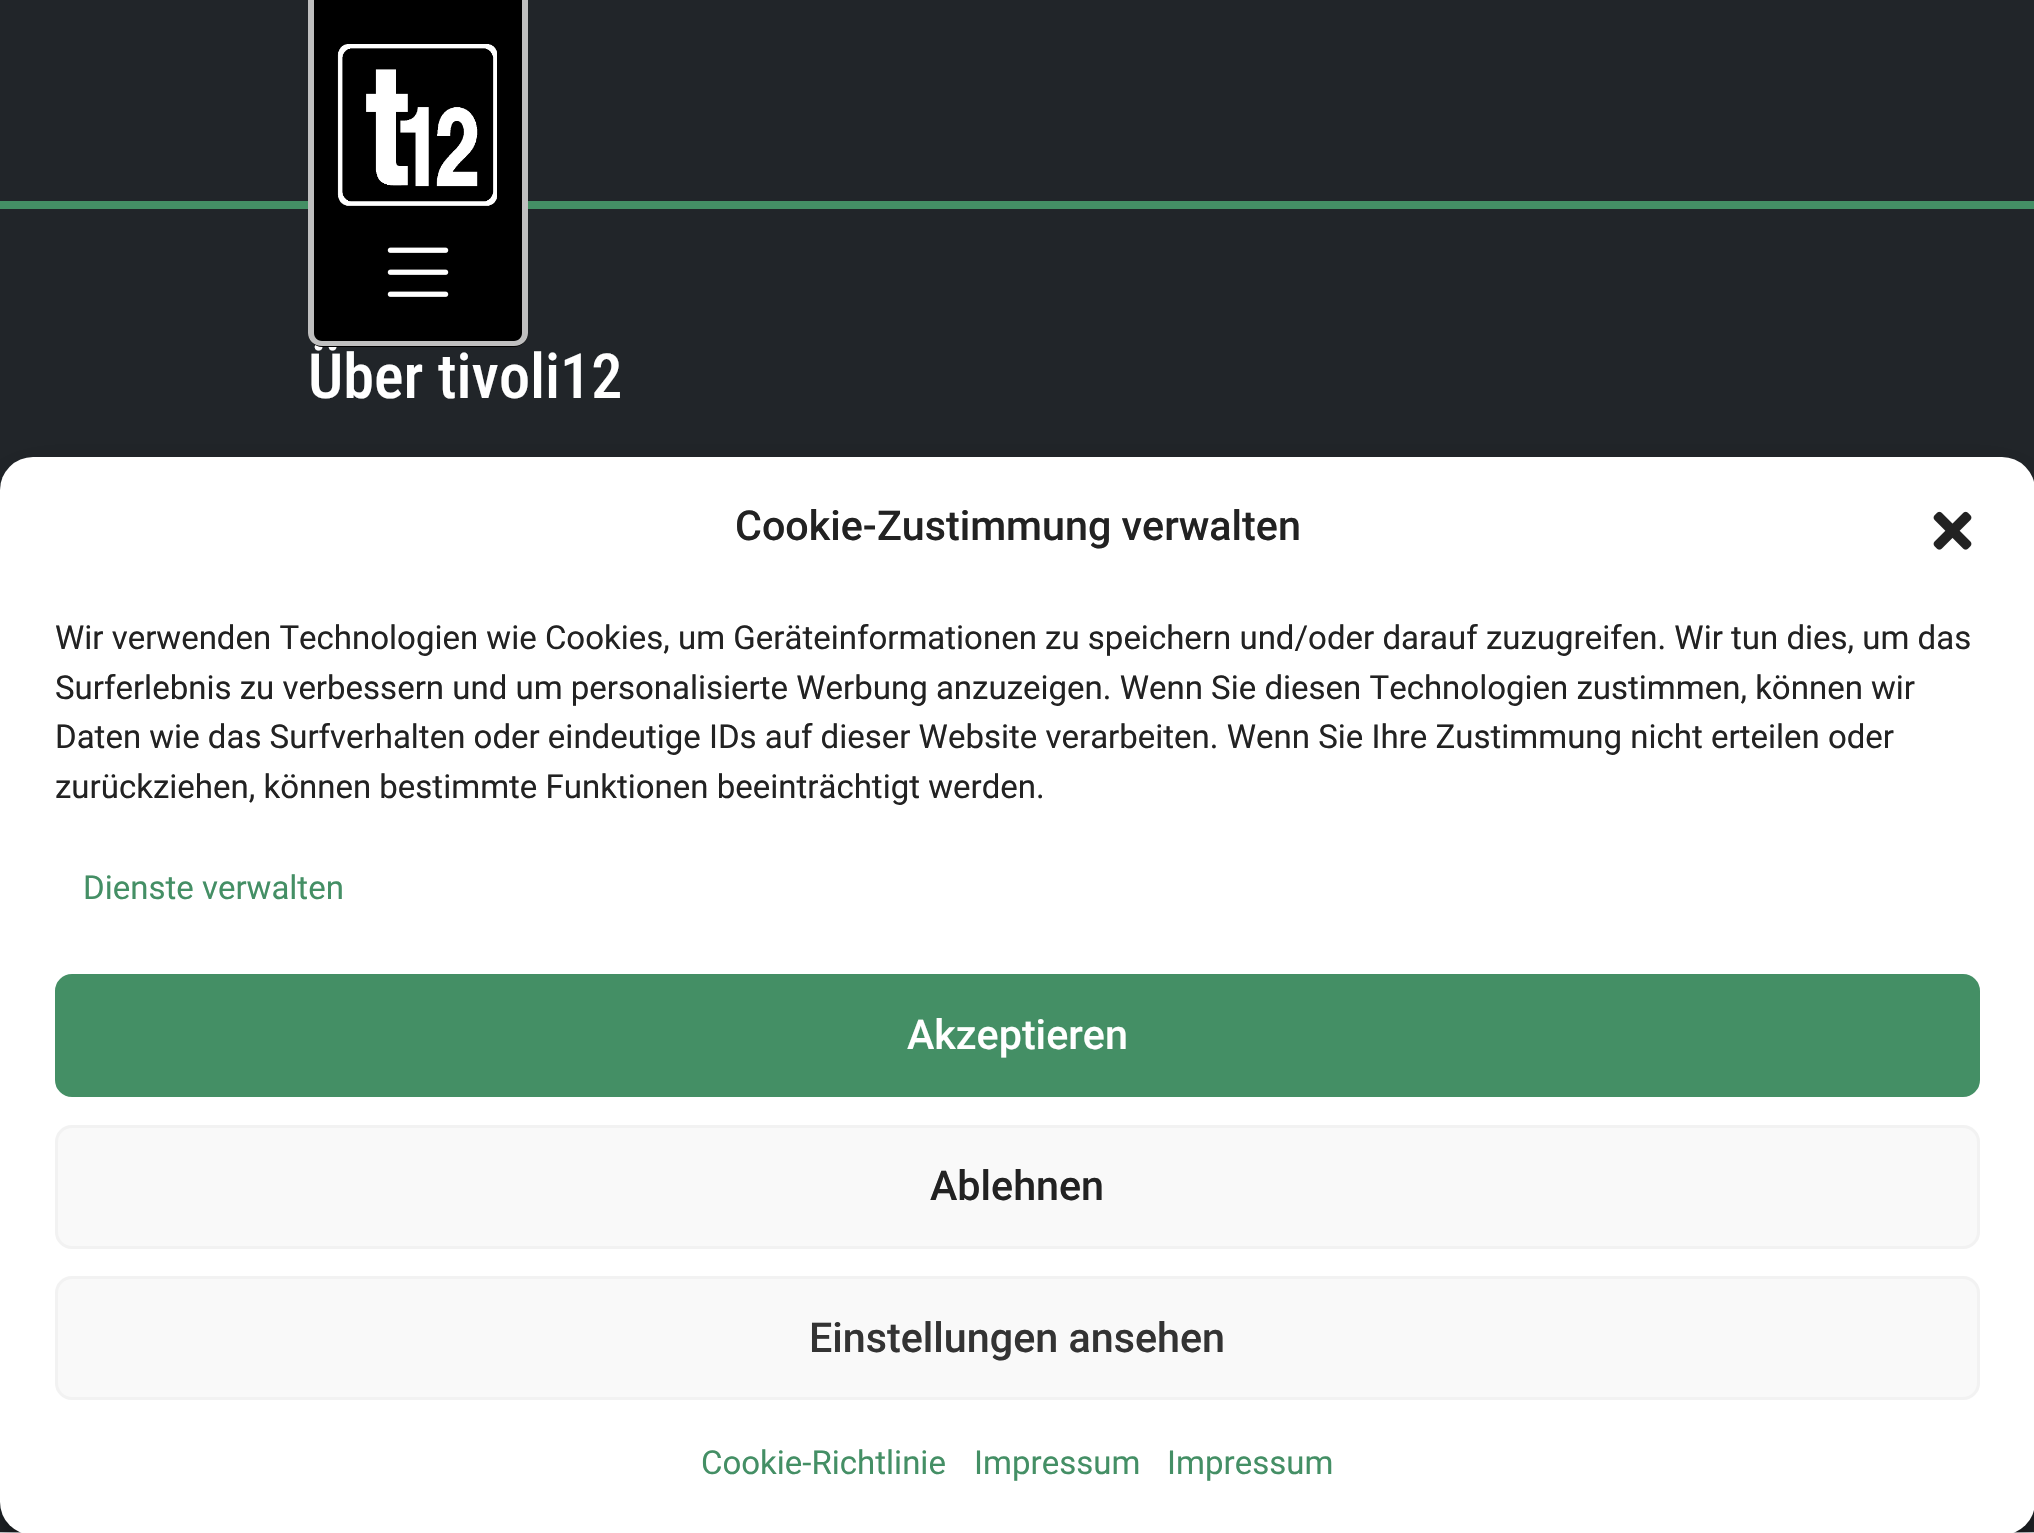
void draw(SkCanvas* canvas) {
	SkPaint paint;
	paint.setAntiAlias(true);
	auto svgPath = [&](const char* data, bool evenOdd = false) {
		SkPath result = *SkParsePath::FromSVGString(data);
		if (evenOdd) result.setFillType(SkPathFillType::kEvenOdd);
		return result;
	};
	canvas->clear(0xff212529);
	paint.setColor(0xff448f65);
	canvas->drawRect(SkRect::MakeXYWH(0, 201, 2034, 8), paint);
	SkFont f1(fontMgr->matchFamilyStyle("Roboto Condensed", SkFontStyle(500, SkFontStyle::kNormal_Width, SkFontStyle::kUpright_Slant)), 62.25);
	f1.setSubpixel(true);
	paint.setColor(0xffffffff);
	canvas->drawString("Über tivoli12", 308, 398, f1, paint);
	paint.setColor(0xff000000);
	canvas->drawPath(svgPath("M308 0H528V333C528 340.5 521.5 347 514 347H322C314.5 347 308 340.5 308 333Z"), paint);
	paint.setColor(0xffbfbfbf);
	canvas->drawPath(svgPath("M308 0H528V333C528 340 522 346 514 346H322C314 346 308 340 308 333ZM314 0H522V333C522 337 519 341 514 341H322C317 341 314 337 314 333Z", true), paint);
	canvas->drawImageRect(SkImages::DeferredFromEncodedData(SkData::MakeFromFileName("img1.png")), SkRect::MakeXYWH(337, 44, 160, 162), SkSamplingOptions());
	canvas->drawImageRect(SkImages::DeferredFromEncodedData(SkData::MakeFromFileName("img2.png")), SkRect::MakeXYWH(387, 247, 62, 50), SkSamplingOptions());
	paint.setColor(0xffdee2e6);
	canvas->drawRect(SkRect::MakeXYWH(0, 1532, 2034, 1), paint);
	paint.setColor(0x3b000000);
	paint.setMaskFilter(SkMaskFilter::MakeBlur(kNormal_SkBlurStyle, 8));
	canvas->drawRoundRect(SkRect::MakeXYWH(0, 473, 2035, 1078), 33, 33, paint);
	paint.setMaskFilter(nullptr);
	paint.setColor(0x30000000);
	paint.setMaskFilter(SkMaskFilter::MakeBlur(kNormal_SkBlurStyle, 27.5));
	canvas->drawRoundRect(SkRect::MakeXYWH(0, 484, 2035, 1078), 33, 33, paint);
	paint.setMaskFilter(nullptr);
	paint.setColor(0xffffffff);
	canvas->drawRoundRect(SkRect::MakeXYWH(0, 457, 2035, 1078), 33, 33, paint);
	SkFont f2(fontMgr->matchFamilyStyle("Roboto", SkFontStyle(500, SkFontStyle::kNormal_Width, SkFontStyle::kUpright_Slant)), 41.25);
	f2.setSubpixel(true);
	paint.setColor(0xff222222);
	canvas->drawString("Cookie-Zustimmung verwalten", 735, 540, f2, paint);
	canvas->drawImageRect(SkImages::DeferredFromEncodedData(SkData::MakeFromFileName("img3.png")), SkRect::MakeXYWH(1933, 511, 39, 39), SkSamplingOptions());
	SkFont f3(fontMgr->matchFamilyStyle("Roboto", SkFontStyle::Normal()), 33);
	f3.setSubpixel(true);
	canvas->drawString("Wir verwenden Technologien wie Cookies, um Geräteinformationen zu speichern und/oder darauf zuzugreifen. Wir tun dies, um das", 55, 649, f3, paint);
	canvas->drawString("Surferlebnis zu verbessern und um personalisierte Werbung anzuzeigen. Wenn Sie diesen Technologien zustimmen, können wir", 55, 699, f3, paint);
	canvas->drawString("Daten wie das Surfverhalten oder eindeutige IDs auf dieser Website verarbeiten. Wenn Sie Ihre Zustimmung nicht erteilen oder", 55, 748, f3, paint);
	canvas->drawString("zurückziehen, können bestimmte Funktionen beeinträchtigt werden.", 55, 798, f3, paint);
	paint.setColor(0xff448f65);
	canvas->drawString("Dienste verwalten", 83, 899, f3, paint);
	canvas->drawRoundRect(SkRect::MakeXYWH(56.5, 975.5, 1922, 120), 15.5, 15.5, paint);
	paint.setStroke(true);
	paint.setStrokeWidth(3);
	canvas->drawRoundRect(SkRect::MakeXYWH(56.5, 975.5, 1922, 120), 15.5, 15.5, paint);
	paint.setStroke(false);
	paint.setColor(0xffffffff);
	canvas->drawString("Akzeptieren", 907, 1049, f2, paint);
	paint.setColor(0xfff9f9f9);
	canvas->drawRoundRect(SkRect::MakeXYWH(56.5, 1126.5, 1922, 121), 15.5, 15.5, paint);
	paint.setStroke(true);
	paint.setColor(0xfff2f2f2);
	canvas->drawRoundRect(SkRect::MakeXYWH(56.5, 1126.5, 1922, 121), 15.5, 15.5, paint);
	paint.setStroke(false);
	paint.setColor(0xff222222);
	canvas->drawString("Ablehnen", 930, 1200, f2, paint);
	paint.setColor(0xfff9f9f9);
	canvas->drawRoundRect(SkRect::MakeXYWH(56.5, 1277.5, 1922, 121), 15.5, 15.5, paint);
	paint.setStroke(true);
	paint.setColor(0xfff2f2f2);
	canvas->drawRoundRect(SkRect::MakeXYWH(56.5, 1277.5, 1922, 121), 15.5, 15.5, paint);
	paint.setStroke(false);
	paint.setColor(0xff333333);
	canvas->drawString("Einstellungen ansehen", 809, 1352, f2, paint);
	paint.setColor(0xff448f65);
	canvas->drawString("Cookie-Richtlinie", 701, 1474, f3, paint);
	canvas->drawString("Impressum", 974, 1474, f3, paint);
	canvas->drawString("Impressum", 1167, 1474, f3, paint);
}
